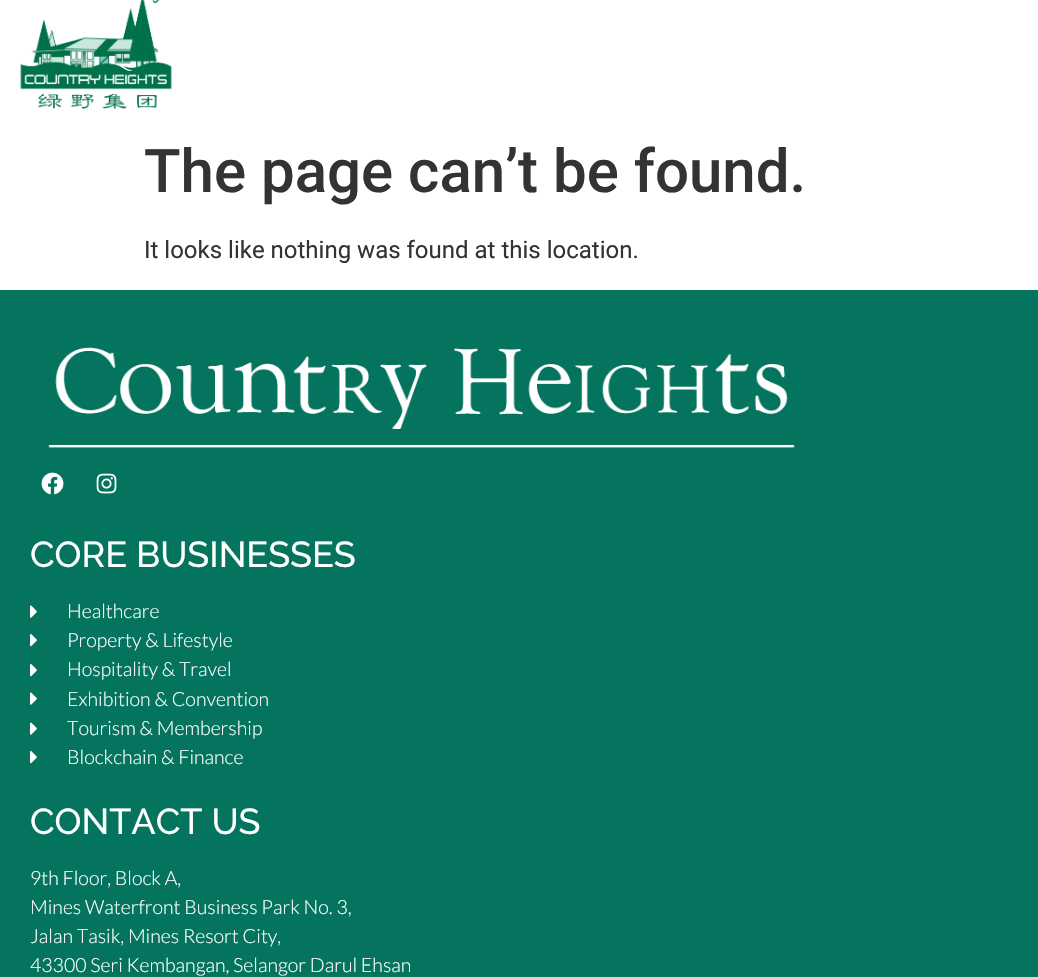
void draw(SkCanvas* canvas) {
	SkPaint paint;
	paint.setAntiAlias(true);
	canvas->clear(0xffffffff);
	canvas->drawImageRect(SkImages::DeferredFromEncodedData(SkData::MakeFromFileName("img1.png")), SkRect::MakeXYWH(20, 0, 152, 109), SkSamplingOptions());
	SkFont f1(fontMgr->matchFamilyStyle("Roboto", SkFontStyle(500, SkFontStyle::kNormal_Width, SkFontStyle::kUpright_Slant)), 60);
	f1.setSubpixel(true);
	paint.setColor(0xff333333);
	canvas->drawString("The page can’t be found.", 144, 192, f1, paint);
	SkFont f2(fontMgr->matchFamilyStyle("Roboto", SkFontStyle::Normal()), 24);
	f2.setSubpixel(true);
	canvas->drawString("It looks like nothing was found at this location.", 144, 258, f2, paint);
	paint.setColor(0xff04745e);
	canvas->drawRect(SkRect::MakeXYWH(0, 290, 1038, 687), paint);
	canvas->drawImageRect(SkImages::DeferredFromEncodedData(SkData::MakeFromFileName("img2.png")), SkRect::MakeXYWH(48, 347, 747, 101), SkSamplingOptions());
	canvas->drawImageRect(SkImages::DeferredFromEncodedData(SkData::MakeFromFileName("img3.png")), SkRect::MakeXYWH(41, 472, 23, 23), SkSamplingOptions());
	canvas->drawImageRect(SkImages::DeferredFromEncodedData(SkData::MakeFromFileName("img4.png")), SkRect::MakeXYWH(96, 473, 21, 21), SkSamplingOptions());
	SkFont f3(fontMgr->matchFamilyStyle("Raleway", SkFontStyle(500, SkFontStyle::kNormal_Width, SkFontStyle::kUpright_Slant)), 36);
	f3.setSubpixel(true);
	paint.setColor(0xffffffff);
	canvas->drawString("CORE BUSINESSES", 30, 567, f3, paint);
	canvas->drawImageRect(SkImages::DeferredFromEncodedData(SkData::MakeFromFileName("img5.png")), SkRect::MakeXYWH(30, 605, 7, 13), SkSamplingOptions());
	SkFont f4(fontMgr->matchFamilyStyle("Lato", SkFontStyle(300, SkFontStyle::kNormal_Width, SkFontStyle::kUpright_Slant)), 19.5);
	f4.setSubpixel(true);
	canvas->drawString("Healthcare", 67, 618, f4, paint);
	canvas->drawImageRect(SkImages::DeferredFromEncodedData(SkData::MakeFromFileName("img6.png")), SkRect::MakeXYWH(30, 634, 7, 13), SkSamplingOptions());
	canvas->drawString("Property & Lifestyle", 67, 647, f4, paint);
	canvas->drawImageRect(SkImages::DeferredFromEncodedData(SkData::MakeFromFileName("img6.png")), SkRect::MakeXYWH(30, 664, 7, 13), SkSamplingOptions());
	canvas->drawString("Hospitality & Travel", 67, 676, f4, paint);
	canvas->drawImageRect(SkImages::DeferredFromEncodedData(SkData::MakeFromFileName("img5.png")), SkRect::MakeXYWH(30, 692, 7, 13), SkSamplingOptions());
	canvas->drawString("Exhibition & Convention", 67, 706, f4, paint);
	canvas->drawImageRect(SkImages::DeferredFromEncodedData(SkData::MakeFromFileName("img5.png")), SkRect::MakeXYWH(30, 722, 7, 13), SkSamplingOptions());
	canvas->drawString("Tourism & Membership", 67, 735, f4, paint);
	canvas->drawImageRect(SkImages::DeferredFromEncodedData(SkData::MakeFromFileName("img6.png")), SkRect::MakeXYWH(30, 751, 7, 13), SkSamplingOptions());
	canvas->drawString("Blockchain & Finance", 67, 764, f4, paint);
	canvas->drawString("CONTACT US", 30, 834, f3, paint);
	canvas->drawString("9th Floor, Block A,", 30, 885, f4, paint);
	canvas->drawString("Mines Waterfront Business Park No. 3,", 30, 914, f4, paint);
	canvas->drawString("Jalan Tasik, Mines Resort City,", 30, 943, f4, paint);
	canvas->drawString("43300 Seri Kembangan, Selangor Darul Ehsan", 30, 972, f4, paint);
}
